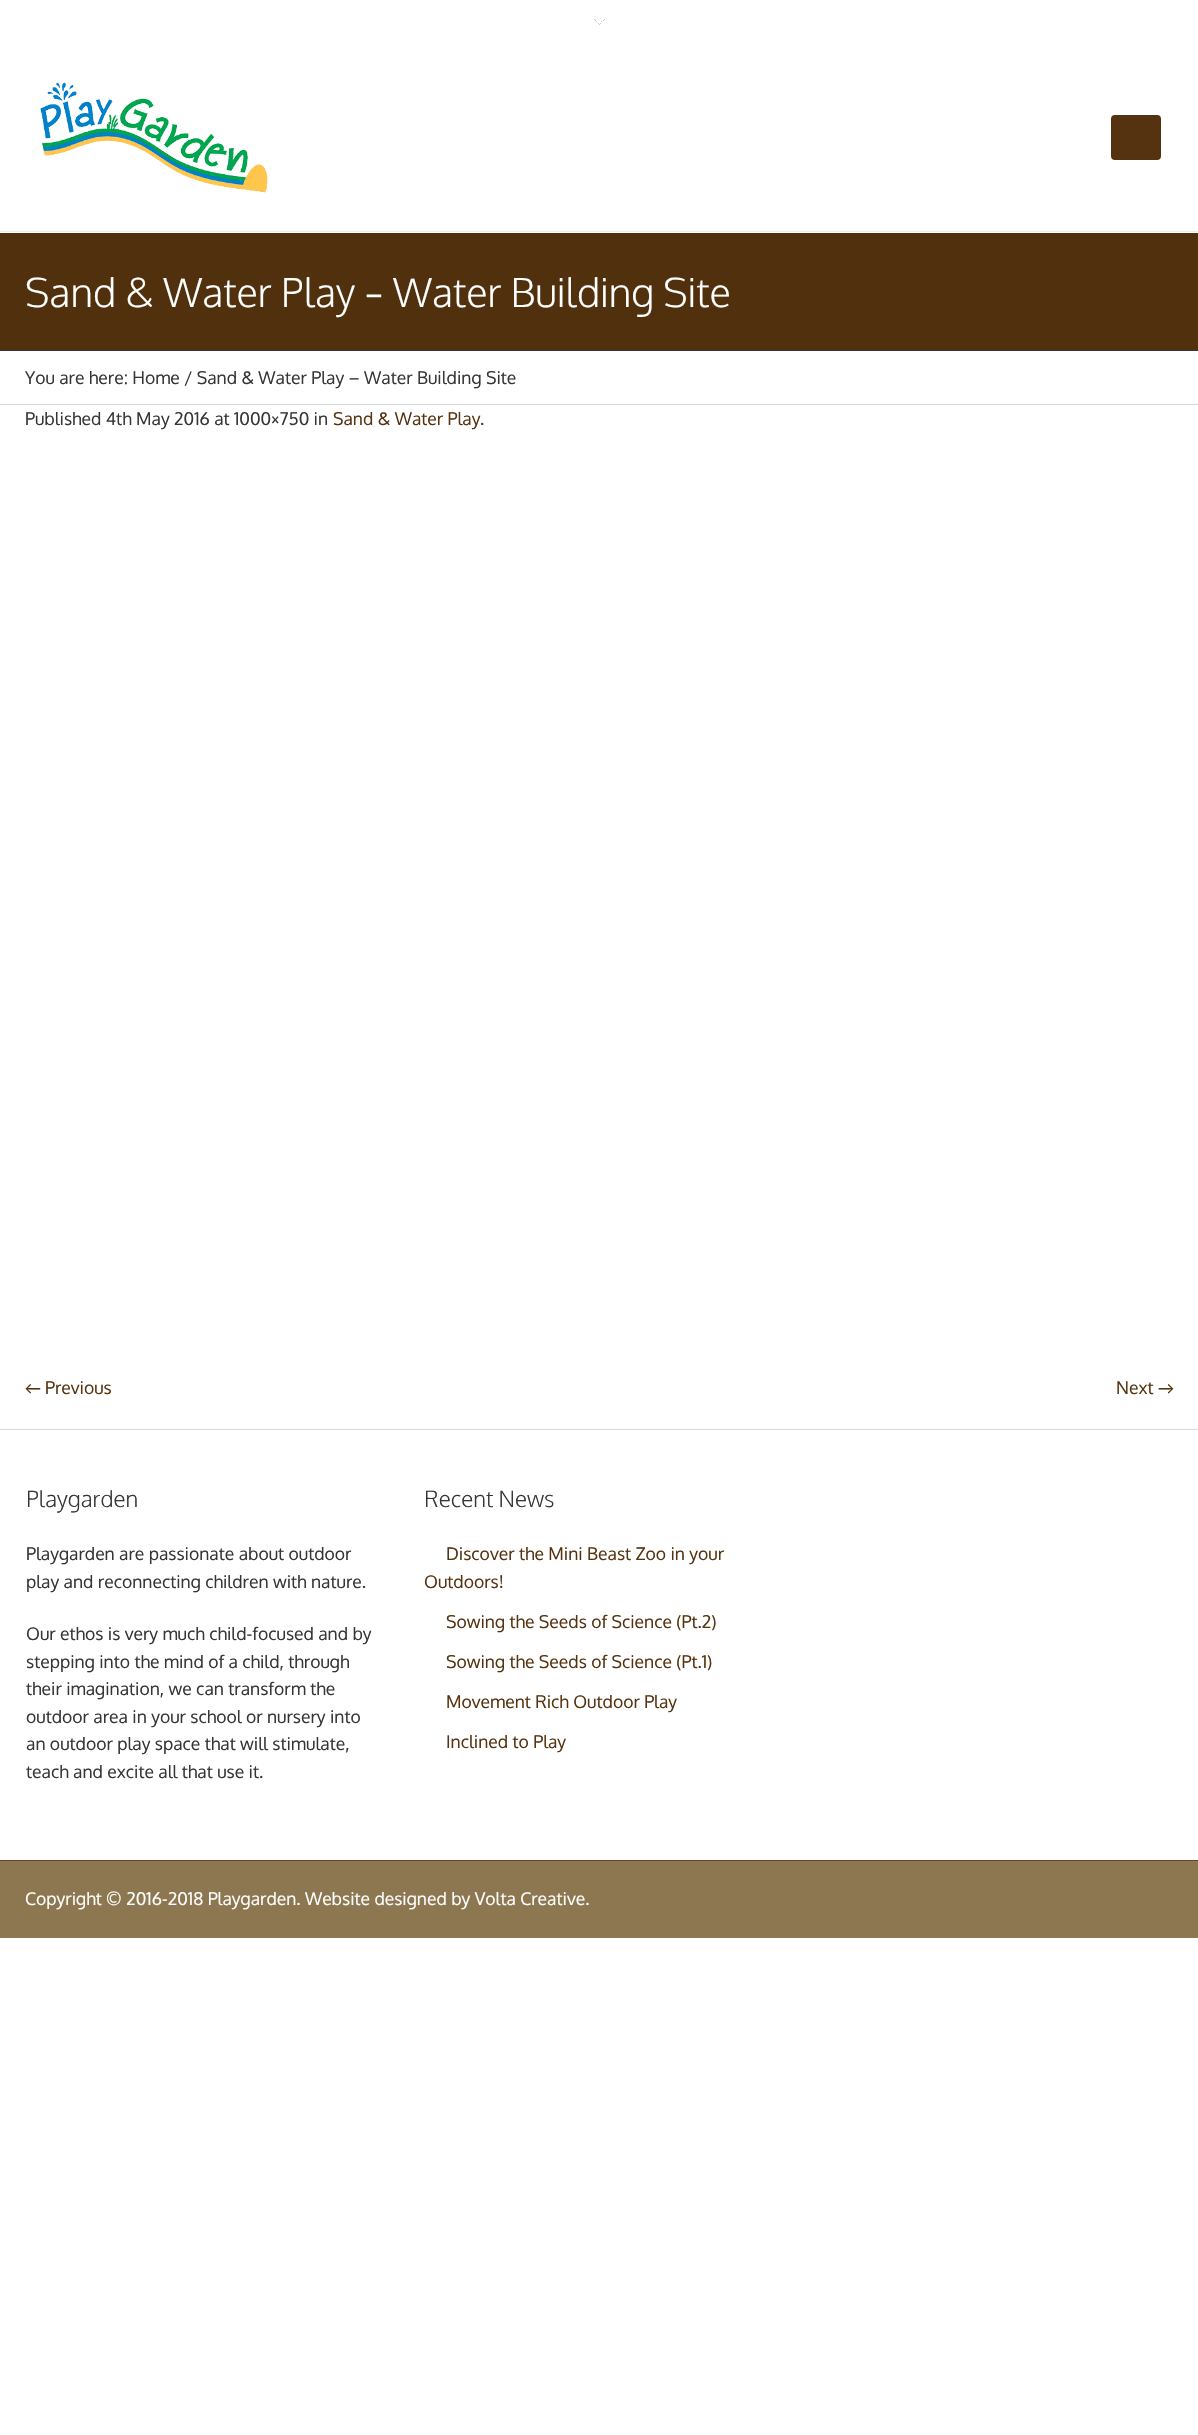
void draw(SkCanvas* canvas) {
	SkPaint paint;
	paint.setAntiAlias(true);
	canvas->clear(0xffffffff);
	paint.setColor(0xffc8ccce);
	canvas->drawRect(SkRect::MakeXYWH(599, 24, 1, 1), paint);
	canvas->drawRect(SkRect::MakeXYWH(604, 19, 1, 1), paint);
	canvas->drawRect(SkRect::MakeXYWH(594, 19, 1, 1), paint);
	canvas->drawRect(SkRect::MakeXYWH(603, 20, 1, 1), paint);
	canvas->drawRect(SkRect::MakeXYWH(595, 20, 1, 1), paint);
	canvas->drawRect(SkRect::MakeXYWH(601, 21, 1, 1), paint);
	canvas->drawRect(SkRect::MakeXYWH(596, 21, 1, 1), paint);
	canvas->drawRect(SkRect::MakeXYWH(600, 23, 1, 1), paint);
	canvas->drawRect(SkRect::MakeXYWH(598, 23, 1, 1), paint);
	paint.setColor(0xffebebeb);
	canvas->drawRect(SkRect::MakeXYWH(0, 231, 1198, 1), paint);
	canvas->drawImageRect(SkImages::DeferredFromEncodedData(SkData::MakeFromFileName("img1.png")), SkRect::MakeXYWH(40, 82, 228, 111), SkSamplingOptions());
	paint.setColor(0xff563310);
	canvas->drawRoundRect(SkRect::MakeXYWH(1111, 115, 50, 45), 4, 4, paint);
	paint.setColor(0xff353535);
	canvas->drawRect(SkRect::MakeXYWH(0, 350, 1198, 1), paint);
	paint.setColor(0xff50300d);
	canvas->drawRect(SkRect::MakeXYWH(0, 233, 1198, 117), paint);
	SkFont f1(fontMgr->matchFamilyStyle("Oxygen", SkFontStyle(300, SkFontStyle::kNormal_Width, SkFontStyle::kUpright_Slant)), 40);
	f1.setSubpixel(true);
	paint.setColor(0xffffffff);
	canvas->drawString("Sand & Water Play", 25, 307, f1, paint);
	SkFont f2(fontMgr->matchFamilyStyle("Carlito", SkFontStyle::Normal()), 40);
	f2.setSubpixel(true);
	canvas->drawString("–", 364, 307, f2, paint);
	canvas->drawString("Water Building Site", 393, 307, f1, paint);
	paint.setColor(0xffd8d8d8);
	canvas->drawRect(SkRect::MakeXYWH(0, 404, 1198, 1), paint);
	SkFont f3(fontMgr->matchFamilyStyle("Oxygen", SkFontStyle::Normal()), 17.5);
	f3.setSubpixel(true);
	paint.setColor(0xff353535);
	canvas->drawString("You are here: Home / Sand & Water Play – Water Building Site", 25, 384, f3, paint);
	canvas->drawString("Published 4th May 2016 at 1000×750 in", 25, 425, f3, paint);
	paint.setColor(0xff563310);
	canvas->drawString("Sand & Water Play", 333, 425, f3, paint);
	paint.setColor(0xff353535);
	canvas->drawString(".", 480, 425, f3, paint);
	SkFont f4(fontMgr->matchFamilyStyle("Carlito", SkFontStyle::Normal()), 17.5);
	f4.setSubpixel(true);
	paint.setColor(0xff563310);
	canvas->drawString("←", 25, 1394, f4, paint);
	canvas->drawString("Previous", 45, 1394, f3, paint);
	canvas->drawString("Next", 1116, 1394, f3, paint);
	canvas->drawString("→", 1158, 1394, f4, paint);
	paint.setColor(0xffd8d8d8);
	canvas->drawRect(SkRect::MakeXYWH(0, 1429, 1198, 1), paint);
	SkFont f5(fontMgr->matchFamilyStyle("Oxygen", SkFontStyle(300, SkFontStyle::kNormal_Width, SkFontStyle::kUpright_Slant)), 22.5);
	f5.setSubpixel(true);
	paint.setColor(0xff353535);
	canvas->drawString("Playgarden", 26, 1507, f5, paint);
	canvas->drawString("Playgarden are passionate about outdoor", 26, 1560, f3, paint);
	canvas->drawString("play and reconnecting children with nature.", 26, 1588, f3, paint);
	canvas->drawString("Our ethos is very much child-focused and by", 26, 1640, f3, paint);
	canvas->drawString("stepping into the mind of a child, through", 26, 1668, f3, paint);
	canvas->drawString("their imagination, we can transform the", 26, 1695, f3, paint);
	canvas->drawString("outdoor area in your school or nursery into", 26, 1723, f3, paint);
	canvas->drawString("an outdoor play space that will stimulate,", 26, 1750, f3, paint);
	canvas->drawString("teach and excite all that use it.", 26, 1778, f3, paint);
	canvas->drawString("Recent News", 424, 1507, f5, paint);
	paint.setColor(0xff563310);
	canvas->drawString("Discover the Mini Beast Zoo in your", 446, 1560, f3, paint);
	canvas->drawString("Outdoors!", 424, 1588, f3, paint);
	canvas->drawString("Sowing the Seeds of Science (Pt.2)", 446, 1628, f3, paint);
	canvas->drawString("Sowing the Seeds of Science (Pt.1)", 446, 1668, f3, paint);
	canvas->drawString("Movement Rich Outdoor Play", 446, 1708, f3, paint);
	canvas->drawString("Inclined to Play", 446, 1748, f3, paint);
	paint.setColor(0xff8c7751);
	canvas->drawRect(SkRect::MakeXYWH(0, 1861, 1198, 77), paint);
	paint.setColor(0xff664433);
	canvas->drawRect(SkRect::MakeXYWH(0, 1860, 1198, 1), paint);
	paint.setColor(0xffffffff);
	canvas->drawString("Copyright © 2016-2018 Playgarden. Website designed by Volta Creative.", 25, 1905, f3, paint);
}
